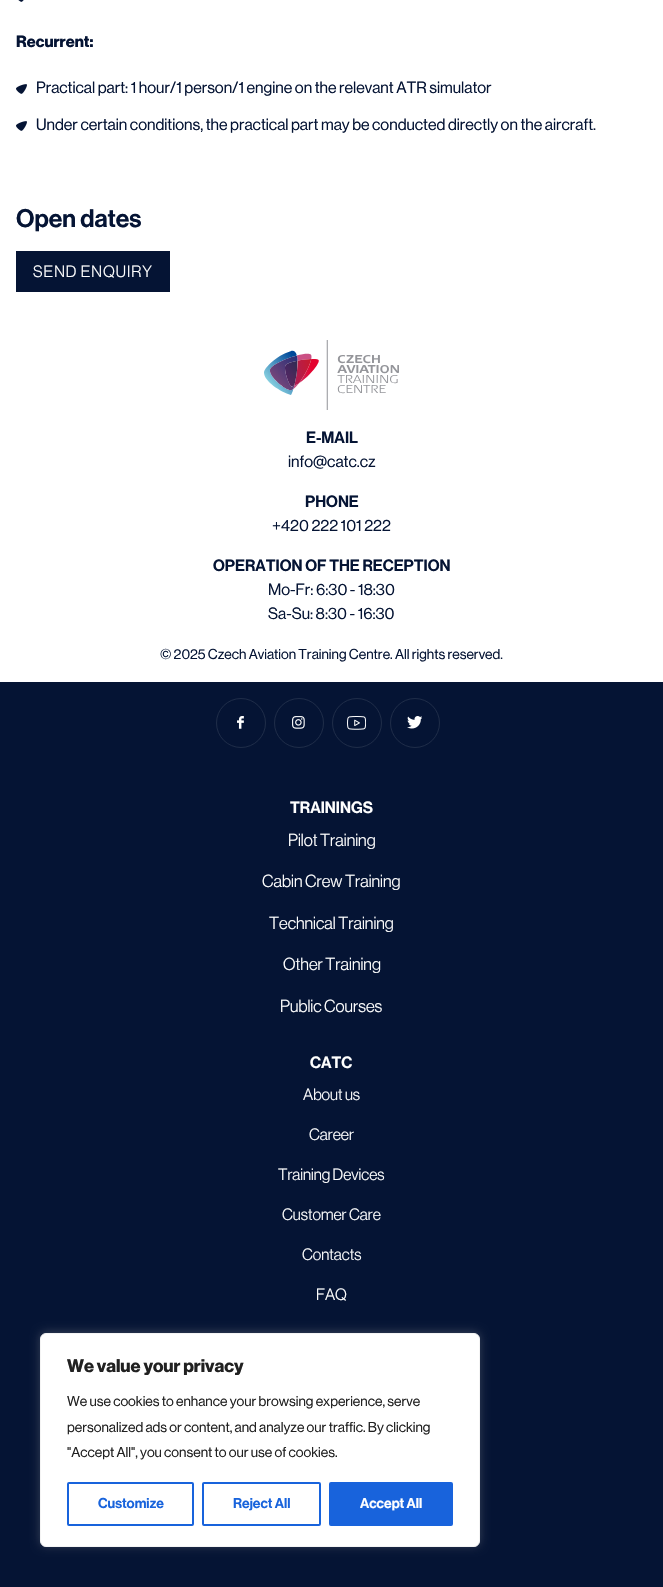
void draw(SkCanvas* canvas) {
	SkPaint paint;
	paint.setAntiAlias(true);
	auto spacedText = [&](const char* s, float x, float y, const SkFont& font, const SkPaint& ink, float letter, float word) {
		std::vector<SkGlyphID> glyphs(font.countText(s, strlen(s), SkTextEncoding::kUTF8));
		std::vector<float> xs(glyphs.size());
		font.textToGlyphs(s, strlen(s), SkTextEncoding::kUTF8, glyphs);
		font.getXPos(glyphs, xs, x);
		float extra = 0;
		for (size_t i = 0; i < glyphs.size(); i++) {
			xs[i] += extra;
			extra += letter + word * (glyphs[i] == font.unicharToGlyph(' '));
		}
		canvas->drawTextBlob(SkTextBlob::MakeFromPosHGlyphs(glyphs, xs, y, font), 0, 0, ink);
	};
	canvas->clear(0xffffffff);
	canvas->drawImageRect(SkImages::DeferredFromEncodedData(SkData::MakeFromFileName("img1.png")), SkRect::MakeXYWH(18, 0, 6, 2), SkSamplingOptions());
	SkFont f1(fontMgr->matchFamilyStyle("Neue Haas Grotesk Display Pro", SkFontStyle::Bold()), 16);
	f1.setSubpixel(true);
	paint.setColor(0xff051434);
	canvas->drawString("Recurrent:", 16, 47, f1, paint);
	canvas->drawImageRect(SkImages::DeferredFromEncodedData(SkData::MakeFromFileName("img2.png")), SkRect::MakeXYWH(16, 84, 11, 10), SkSamplingOptions());
	SkFont f2(fontMgr->matchFamilyStyle("Neue Haas Grotesk Display Pro", SkFontStyle::Normal()), 16);
	f2.setSubpixel(true);
	canvas->drawString("Practical part: 1 hour/1 person/1 engine on the relevant ATR simulator", 36, 93, f2, paint);
	canvas->drawImageRect(SkImages::DeferredFromEncodedData(SkData::MakeFromFileName("img2.png")), SkRect::MakeXYWH(16, 121, 11, 10), SkSamplingOptions());
	canvas->drawString("Under certain conditions, the practical part may be conducted directly on the aircraft.", 36, 130, f2, paint);
	SkFont f3(fontMgr->matchFamilyStyle("Neue Haas Grotesk Display Pro", SkFontStyle(600, SkFontStyle::kNormal_Width, SkFontStyle::kUpright_Slant)), 25);
	f3.setSubpixel(true);
	canvas->drawString("Open dates", 16, 227, f3, paint);
	canvas->drawRect(SkRect::MakeXYWH(16, 251, 154, 41), paint);
	SkFont f4(fontMgr->matchFamilyStyle("Neue Haas Grotesk Display Pro", SkFontStyle(300, SkFontStyle::kNormal_Width, SkFontStyle::kUpright_Slant)), 16);
	f4.setSubpixel(true);
	paint.setColor(0xffffffff);
	spacedText("SEND ENQUIRY", 33, 277, f4, paint, 1, 0);
	canvas->drawImageRect(SkImages::DeferredFromEncodedData(SkData::MakeFromFileName("img3.png")), SkRect::MakeXYWH(264, 340, 135, 70), SkSamplingOptions());
	SkFont f5(fontMgr->matchFamilyStyle("Neue Haas Grotesk Display Pro", SkFontStyle(600, SkFontStyle::kNormal_Width, SkFontStyle::kUpright_Slant)), 16);
	f5.setSubpixel(true);
	paint.setColor(0xff051434);
	canvas->drawString("E-MAIL", 306, 443, f5, paint);
	canvas->drawString("info@catc.cz", 288, 467, f2, paint);
	canvas->drawString("PHONE", 305, 507, f5, paint);
	canvas->drawString("+420 222 101 222", 272, 531, f2, paint);
	canvas->drawString("OPERATION OF THE RECEPTION", 213, 571, f5, paint);
	canvas->drawString("Mo-Fr: 6:30 - 18:30", 268, 595, f2, paint);
	canvas->drawString("Sa-Su: 8:30 - 16:30", 268, 619, f2, paint);
	SkFont f6(fontMgr->matchFamilyStyle("Neue Haas Grotesk Display Pro", SkFontStyle::Normal()), 14);
	f6.setSubpixel(true);
	canvas->drawString("© 2025 Czech Aviation Training Centre. All rights reserved.", 160, 659, f6, paint);
	canvas->drawRect(SkRect::MakeXYWH(0, 682, 663, 905), paint);
	paint.setStroke(true);
	paint.setStrokeWidth(1);
	paint.setColor(0xff1e2c48);
	canvas->drawCircle(241, 723, 24.5, paint);
	canvas->drawImageRect(SkImages::DeferredFromEncodedData(SkData::MakeFromFileName("img4.png")), SkRect::MakeXYWH(237, 716, 7, 13), SkSamplingOptions());
	canvas->drawCircle(299, 723, 24.5, paint);
	canvas->drawImageRect(SkImages::DeferredFromEncodedData(SkData::MakeFromFileName("img5.png")), SkRect::MakeXYWH(292, 716, 13, 13), SkSamplingOptions());
	canvas->drawCircle(357, 723, 24.5, paint);
	canvas->drawImageRect(SkImages::DeferredFromEncodedData(SkData::MakeFromFileName("img6.png")), SkRect::MakeXYWH(347, 716, 19, 14), SkSamplingOptions());
	canvas->drawCircle(415, 723, 24.5, paint);
	canvas->drawImageRect(SkImages::DeferredFromEncodedData(SkData::MakeFromFileName("img7.png")), SkRect::MakeXYWH(407, 716, 15, 13), SkSamplingOptions());
	paint.setStroke(false);
	paint.setColor(0xffffffff);
	canvas->drawString("TRAININGS", 290, 813, f5, paint);
	SkFont f7(fontMgr->matchFamilyStyle("Neue Haas Grotesk Display Pro", SkFontStyle(300, SkFontStyle::kNormal_Width, SkFontStyle::kUpright_Slant)), 17);
	f7.setSubpixel(true);
	canvas->drawString("Pilot Training", 288, 846, f7, paint);
	canvas->drawString("Cabin Crew Training", 262, 887, f7, paint);
	canvas->drawString("Technical Training", 269, 929, f7, paint);
	canvas->drawString("Other Training", 283, 970, f7, paint);
	canvas->drawString("Public Courses", 280, 1012, f7, paint);
	canvas->drawString("CATC", 310, 1068, f5, paint);
	canvas->drawString("About us", 303, 1100, f4, paint);
	canvas->drawString("Career", 309, 1140, f4, paint);
	canvas->drawString("Training Devices", 278, 1180, f4, paint);
	canvas->drawString("Customer Care", 282, 1220, f4, paint);
	canvas->drawString("Contacts", 302, 1260, f4, paint);
	canvas->drawString("FAQ", 316, 1300, f4, paint);
	paint.setColor(0x4dacabab);
	paint.setMaskFilter(SkMaskFilter::MakeBlur(kNormal_SkBlurStyle, 5));
	canvas->drawRoundRect(SkRect::MakeXYWH(40, 1332, 440, 214), 6, 6, paint);
	paint.setMaskFilter(nullptr);
	paint.setColor(0xffffffff);
	canvas->drawRoundRect(SkRect::MakeXYWH(40.5, 1333.5, 439, 213), 5.5, 5.5, paint);
	paint.setStroke(true);
	paint.setColor(0xfff4f4f4);
	canvas->drawRoundRect(SkRect::MakeXYWH(40.5, 1333.5, 439, 213), 5.5, 5.5, paint);
	SkFont f8(fontMgr->matchFamilyStyle("Neue Haas Grotesk Display Pro", SkFontStyle::Bold()), 18);
	f8.setSubpixel(true);
	paint.setStroke(false);
	paint.setColor(0xff212121);
	canvas->drawString("We value your privacy", 67, 1372, f8, paint);
	canvas->drawString("We use cookies to enhance your browsing experience, serve", 67, 1406, f6, paint);
	canvas->drawString("personalized ads or content, and analyze our traffic. By clicking", 67, 1432, f6, paint);
	canvas->drawString("\"Accept All\", you consent to our use of cookies.", 67, 1457, f6, paint);
	paint.setStroke(true);
	paint.setStrokeWidth(2);
	paint.setColor(0xff1863dc);
	canvas->drawRoundRect(SkRect::MakeXYWH(68, 1483, 125, 42), 1, 1, paint);
	SkFont f9(fontMgr->matchFamilyStyle("Neue Haas Grotesk Display Pro", SkFontStyle(600, SkFontStyle::kNormal_Width, SkFontStyle::kUpright_Slant)), 14);
	f9.setSubpixel(true);
	paint.setStroke(false);
	canvas->drawString("Customize", 98, 1508, f9, paint);
	paint.setStroke(true);
	canvas->drawRoundRect(SkRect::MakeXYWH(203, 1483, 117, 42), 1, 1, paint);
	paint.setStroke(false);
	canvas->drawString("Reject All", 233, 1508, f9, paint);
	canvas->drawRoundRect(SkRect::MakeXYWH(330, 1483, 122, 42), 1, 1, paint);
	paint.setStroke(true);
	canvas->drawRoundRect(SkRect::MakeXYWH(330, 1483, 122, 42), 1, 1, paint);
	paint.setStroke(false);
	paint.setColor(0xffffffff);
	canvas->drawString("Accept All", 360, 1508, f9, paint);
}
